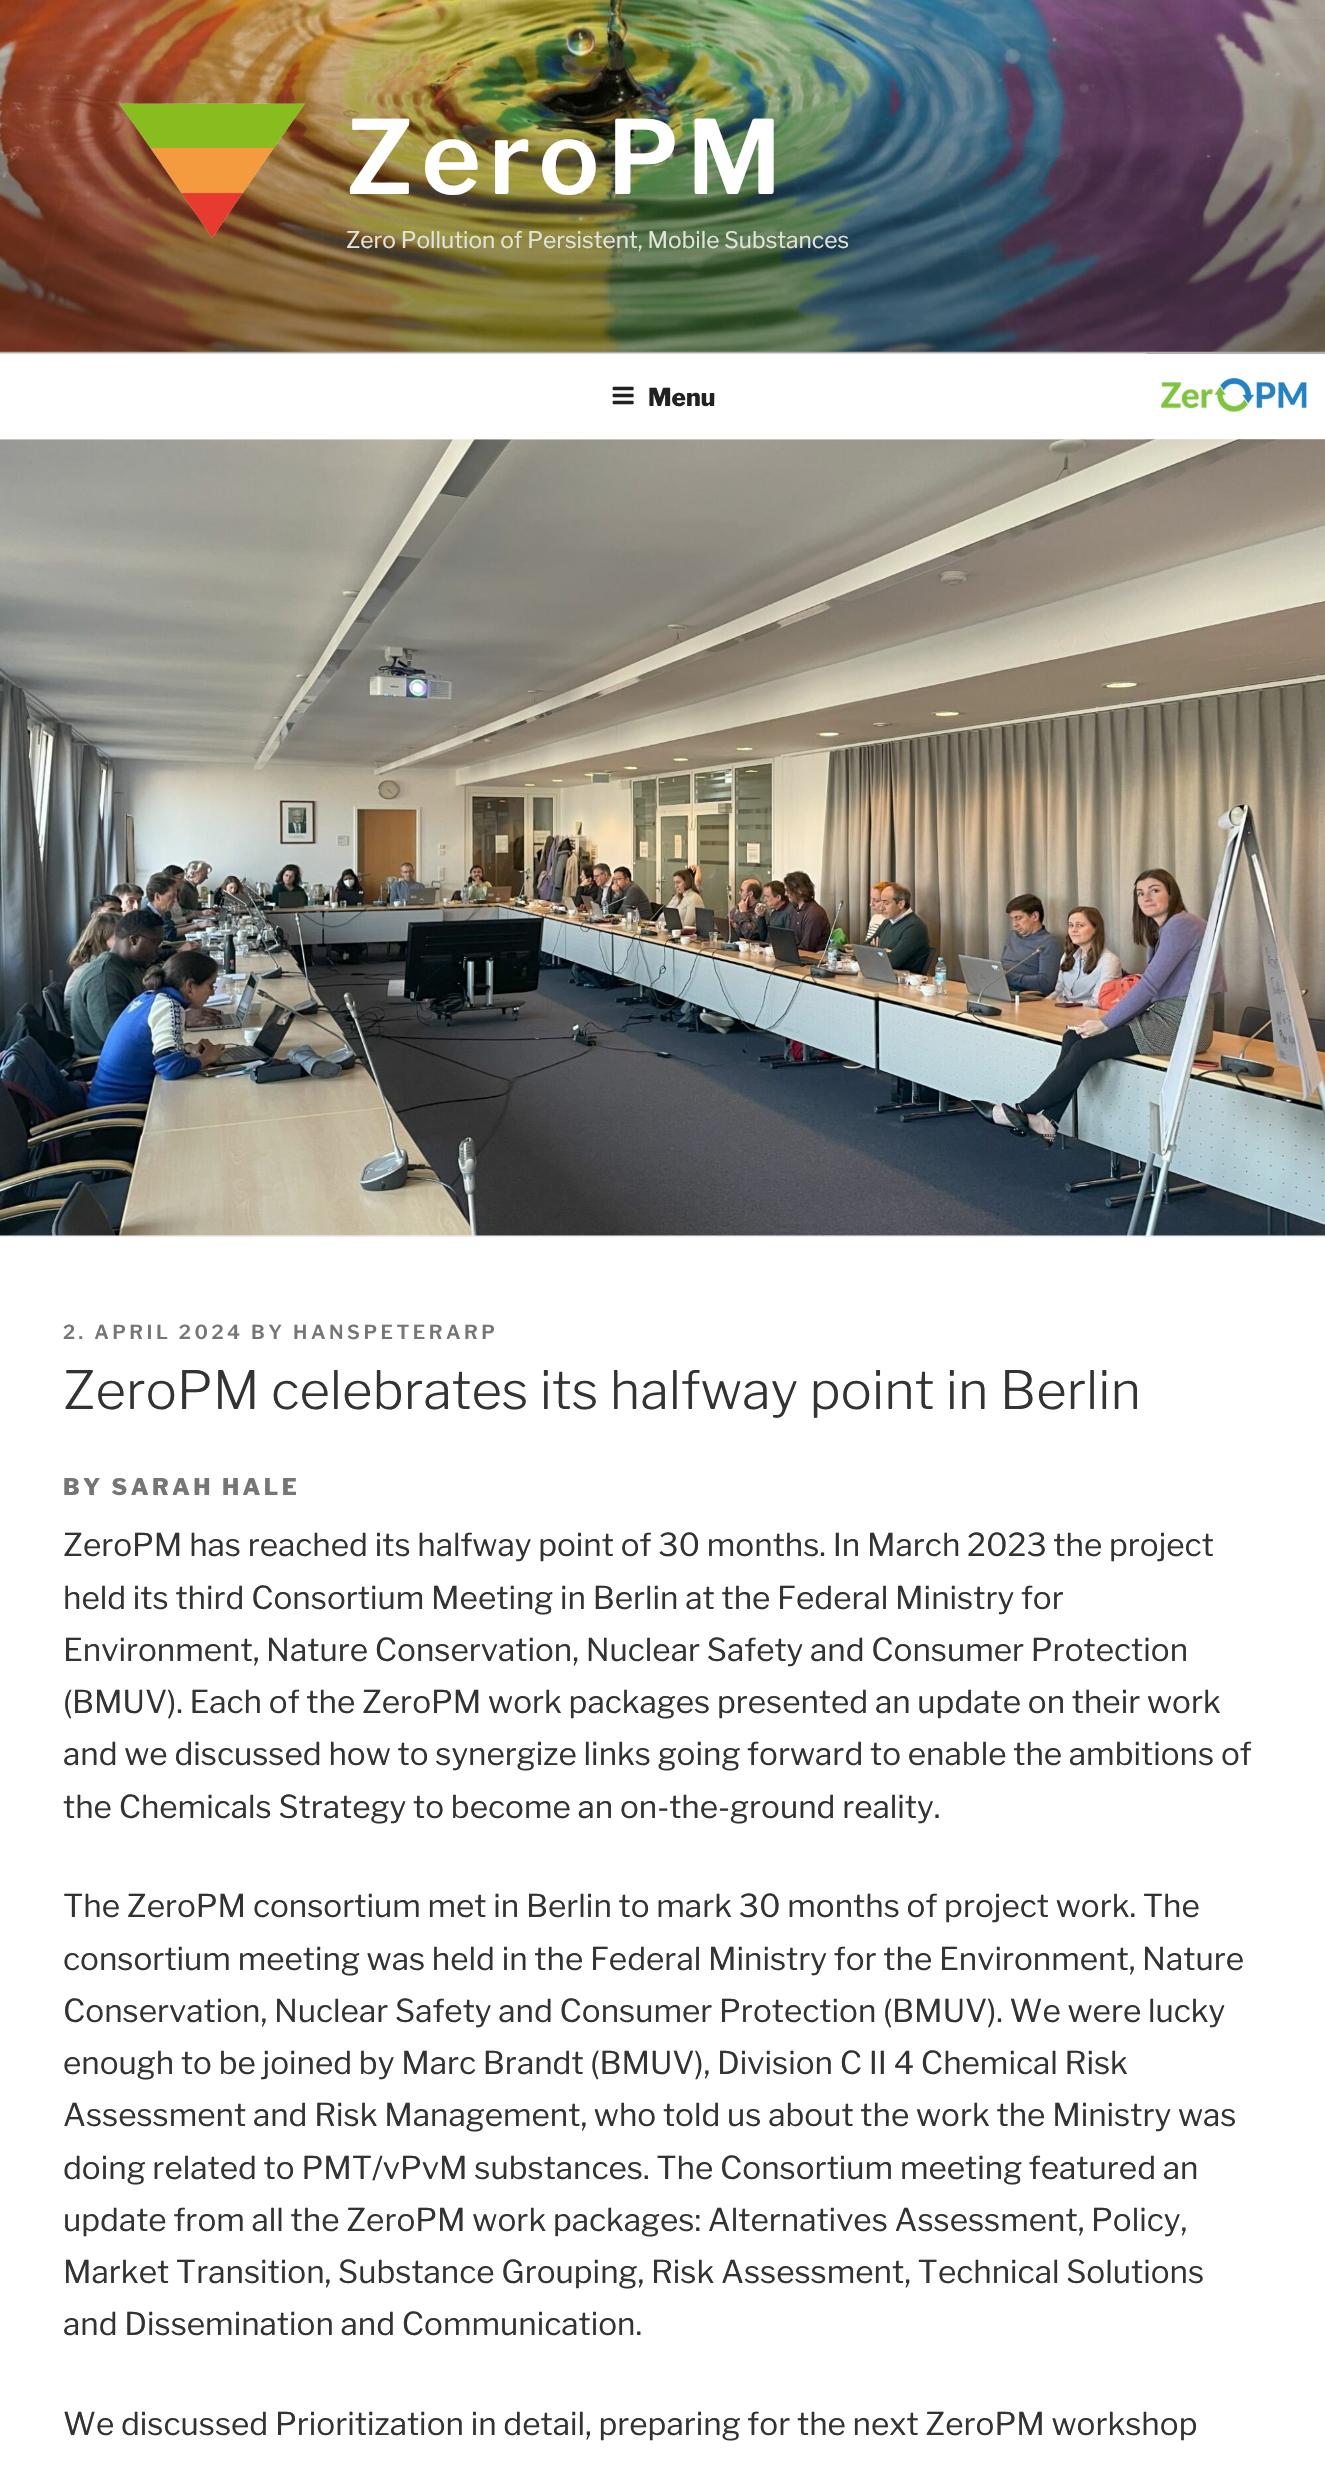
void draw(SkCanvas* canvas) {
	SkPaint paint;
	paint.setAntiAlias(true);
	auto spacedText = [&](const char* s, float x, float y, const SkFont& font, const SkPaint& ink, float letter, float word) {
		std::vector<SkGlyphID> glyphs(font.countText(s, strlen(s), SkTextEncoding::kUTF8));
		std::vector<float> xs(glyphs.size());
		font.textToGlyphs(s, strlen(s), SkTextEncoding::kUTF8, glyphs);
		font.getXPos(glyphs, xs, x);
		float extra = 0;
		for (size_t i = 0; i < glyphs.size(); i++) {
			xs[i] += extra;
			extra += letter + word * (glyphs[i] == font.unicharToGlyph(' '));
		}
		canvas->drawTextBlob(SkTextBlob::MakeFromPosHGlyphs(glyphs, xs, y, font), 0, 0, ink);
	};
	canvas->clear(0xfffafafa);
	canvas->drawImageRect(SkImages::DeferredFromEncodedData(SkData::MakeFromFileName("img1.png")), SkRect::MakeXYWH(0, 0, 1325, 352), SkSamplingOptions());
	{
		const SkColor colors[] = {0x00000000, 0x4d000000, 0x4d000000};
		const float stops[] = {0, 0.75, 1};
		const SkPoint ends[] = {{663, 0}, {663, 354}};
		paint.setShader(SkGradientShader::MakeLinear(ends, colors, stops, 3, SkTileMode::kClamp));
		paint.setAlpha(255);
	}
	canvas->drawRect(SkRect::MakeXYWH(0, 19, 1325, 335), paint);
	canvas->drawImageRect(SkImages::DeferredFromEncodedData(SkData::MakeFromFileName("img2.png")), SkRect::MakeXYWH(119, 103, 186, 135), SkSamplingOptions());
	SkFont f1(fontMgr->matchFamilyStyle("Libre Franklin", SkFontStyle(600, SkFontStyle::kNormal_Width, SkFontStyle::kUpright_Slant)), 101.5);
	f1.setSubpixel(true);
	paint.setShader(nullptr);
	paint.setColor(0xffffffff);
	spacedText("ZeroPM", 346, 194, f1, paint, 8, 0);
	SkFont f2(fontMgr->matchFamilyStyle("Libre Franklin", SkFontStyle::Normal()), 22.75);
	f2.setSubpixel(true);
	paint.setColor(0xffe2e4db);
	canvas->drawString("Zero Pollution of Persistent, Mobile Substances", 346, 248, f2, paint);
	paint.setColor(0xffffffff);
	canvas->drawRect(SkRect::MakeXYWH(1146, 354, 179, 85), paint);
	canvas->drawImageRect(SkImages::DeferredFromEncodedData(SkData::MakeFromFileName("img5.png")), SkRect::MakeXYWH(0, 439, 1325, 797), SkSamplingOptions());
	canvas->drawImageRect(SkImages::DeferredFromEncodedData(SkData::MakeFromFileName("img3.png")), SkRect::MakeXYWH(0, 353, 1307, 87), SkSamplingOptions());
	canvas->drawImageRect(SkImages::DeferredFromEncodedData(SkData::MakeFromFileName("img4.png")), SkRect::MakeXYWH(612, 386, 22, 19), SkSamplingOptions());
	SkFont f3(fontMgr->matchFamilyStyle("Libre Franklin", SkFontStyle(800, SkFontStyle::kNormal_Width, SkFontStyle::kUpright_Slant)), 24.5);
	f3.setSubpixel(true);
	paint.setColor(0xff222222);
	canvas->drawString("Menu", 648, 406, f3, paint);
	paint.setColor(0xffeeeeee);
	canvas->drawRect(SkRect::MakeXYWH(0, 1236, 1325, 1), paint);
	paint.setColor(0xffffffff);
	canvas->drawRect(SkRect::MakeXYWH(0, 1237, 1325, 1231), paint);
	SkFont f4(fontMgr->matchFamilyStyle("Libre Franklin", SkFontStyle(600, SkFontStyle::kNormal_Width, SkFontStyle::kUpright_Slant)), 19.25);
	f4.setSubpixel(true);
	paint.setColor(0xff767676);
	spacedText("2. APRIL 2024 BY HANSPETERARP", 63, 1339, f4, paint, 3.5, 0);
	SkFont f5(fontMgr->matchFamilyStyle("Libre Franklin", SkFontStyle(300, SkFontStyle::kNormal_Width, SkFontStyle::kUpright_Slant)), 52.5);
	f5.setSubpixel(true);
	paint.setColor(0xff333333);
	canvas->drawString("ZeroPM celebrates its halfway point in Berlin", 63, 1409, f5, paint);
	SkFont f6(fontMgr->matchFamilyStyle("Libre Franklin", SkFontStyle(800, SkFontStyle::kNormal_Width, SkFontStyle::kUpright_Slant)), 22.75);
	f6.setSubpixel(true);
	paint.setColor(0xff767676);
	spacedText("BY SARAH HALE", 63, 1495, f6, paint, 3.4, 0);
	SkFont f7(fontMgr->matchFamilyStyle("Libre Franklin", SkFontStyle::Normal()), 31.5);
	f7.setSubpixel(true);
	paint.setColor(0xff333333);
	canvas->drawString("ZeroPM has reached its halfway point of 30 months. In March 2023 the project", 63, 1556, f7, paint);
	canvas->drawString("held its third Consortium Meeting in Berlin at the Federal Ministry for", 63, 1609, f7, paint);
	canvas->drawString("Environment, Nature Conservation, Nuclear Safety and Consumer Protection", 63, 1661, f7, paint);
	canvas->drawString("(BMUV). Each of the ZeroPM work packages presented an update on their work", 63, 1713, f7, paint);
	canvas->drawString("and we discussed how to synergize links going forward to enable the ambitions of", 63, 1765, f7, paint);
	canvas->drawString("the Chemicals Strategy to become an on-the-ground reality.", 63, 1818, f7, paint);
	canvas->drawString("The ZeroPM consortium met in Berlin to mark 30 months of project work. The", 63, 1917, f7, paint);
	canvas->drawString("consortium meeting was held in the Federal Ministry for the Environment, Nature", 63, 1970, f7, paint);
	canvas->drawString("Conservation, Nuclear Safety and Consumer Protection (BMUV). We were lucky", 63, 2022, f7, paint);
	canvas->drawString("enough to be joined by Marc Brandt (BMUV), Division C II 4 Chemical Risk", 63, 2074, f7, paint);
	canvas->drawString("Assessment and Risk Management, who told us about the work the Ministry was", 63, 2126, f7, paint);
	canvas->drawString("doing related to PMT/vPvM substances. The Consortium meeting featured an", 63, 2179, f7, paint);
	canvas->drawString("update from all the ZeroPM work packages: Alternatives Assessment, Policy,", 63, 2231, f7, paint);
	canvas->drawString("Market Transition, Substance Grouping, Risk Assessment, Technical Solutions", 63, 2283, f7, paint);
	canvas->drawString("and Dissemination and Communication.", 63, 2335, f7, paint);
	canvas->drawString("We discussed Prioritization in detail, preparing for the next ZeroPM workshop", 63, 2435, f7, paint);
}
